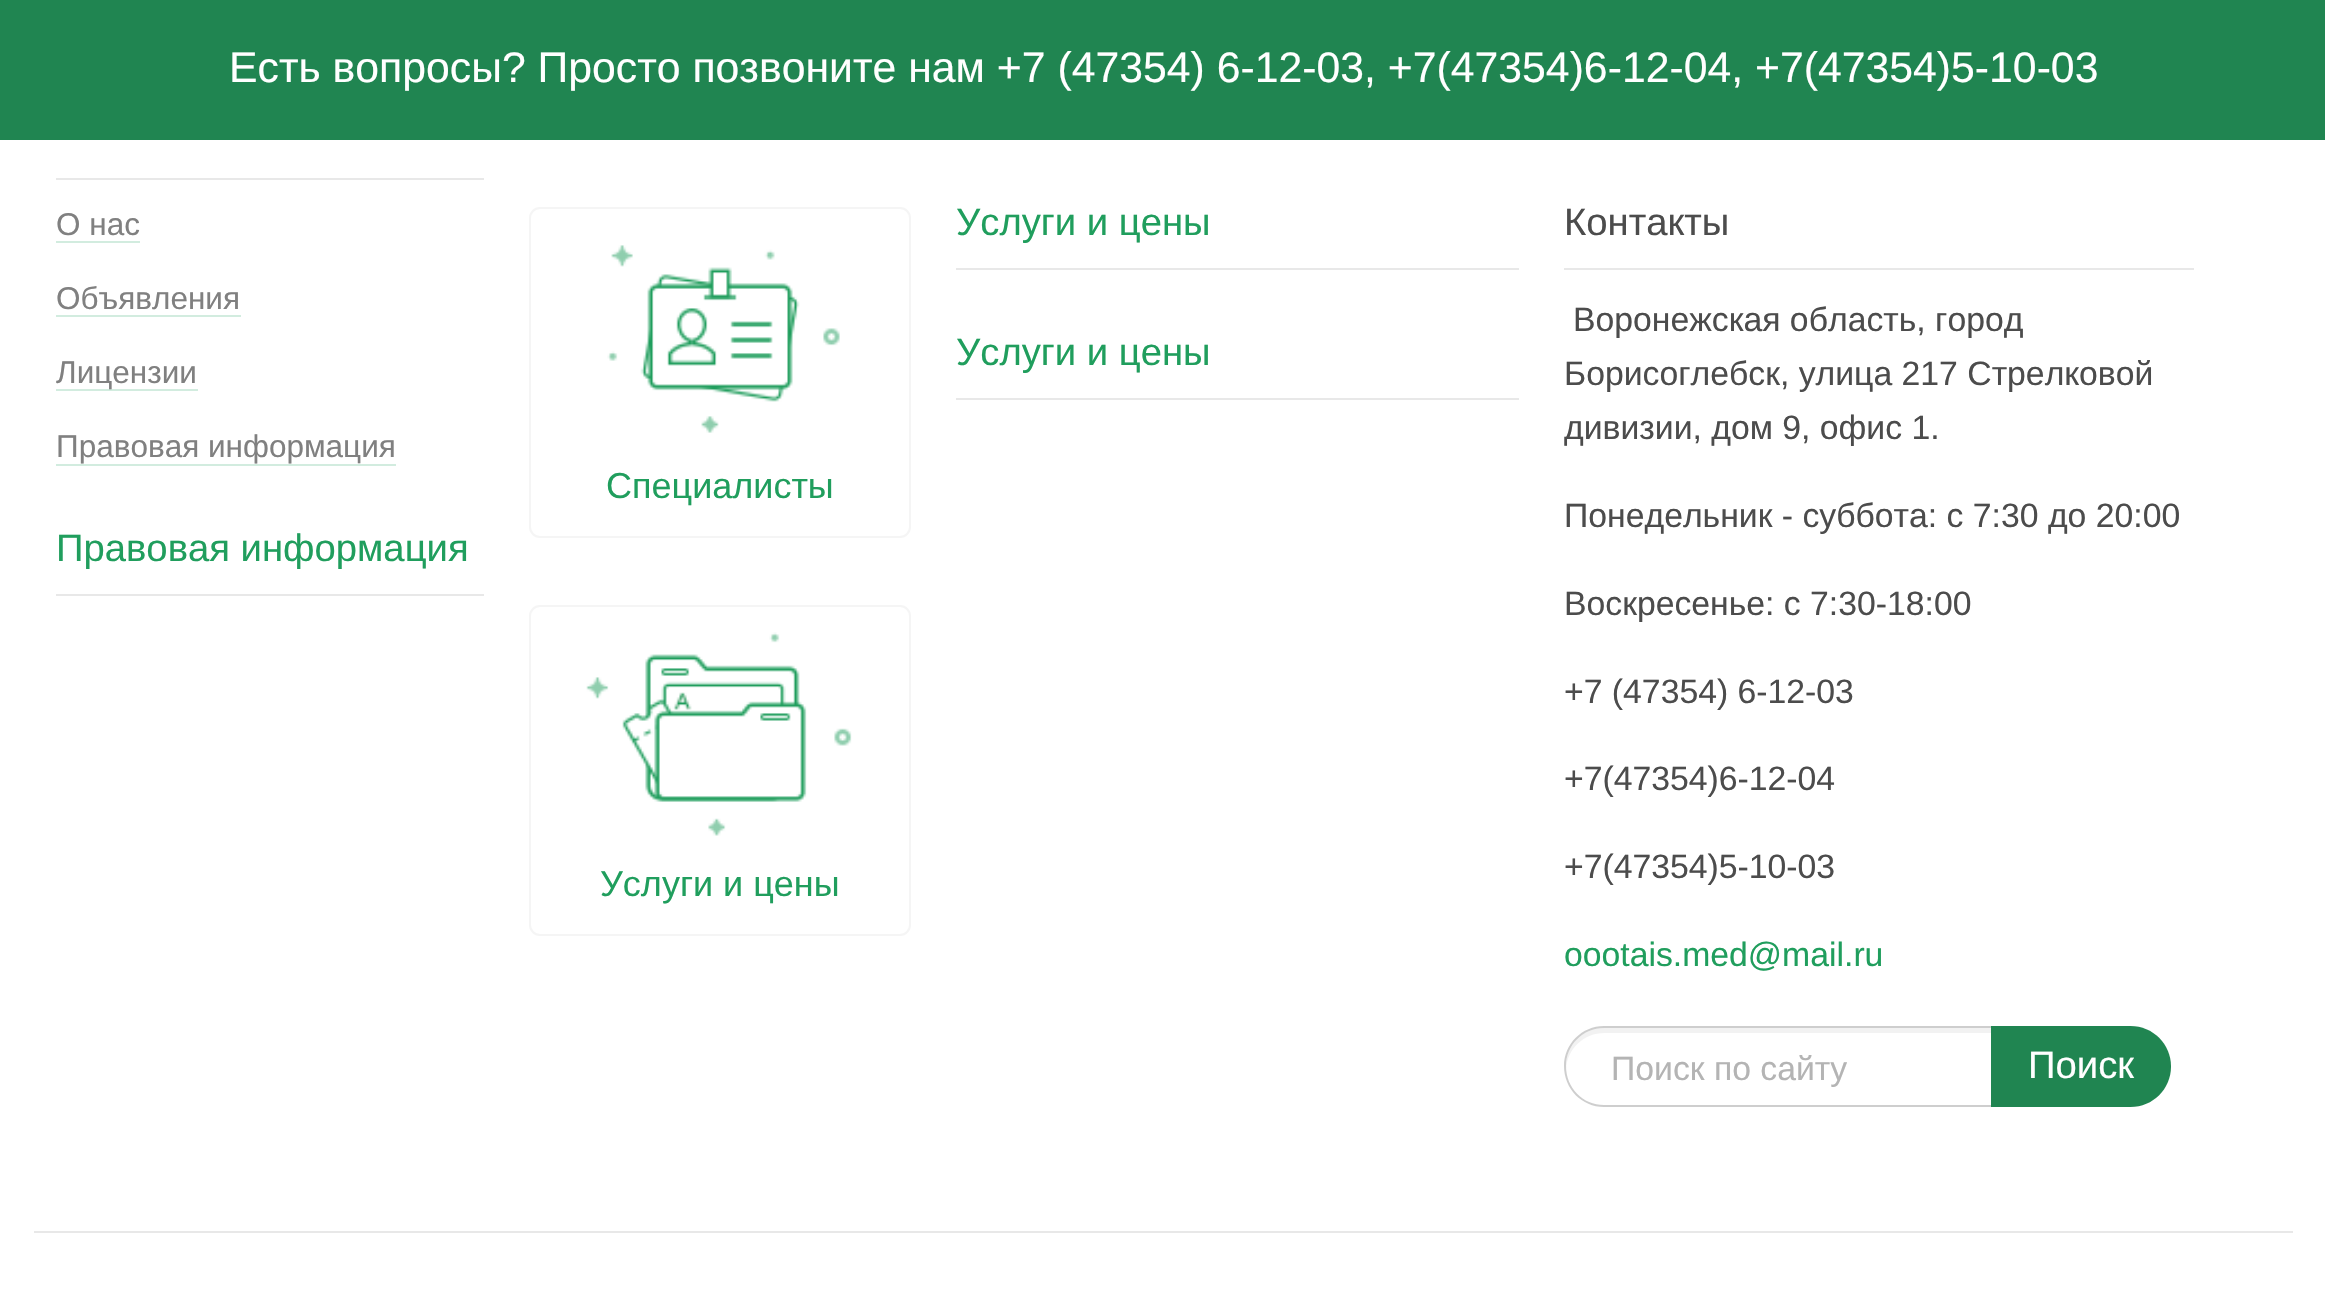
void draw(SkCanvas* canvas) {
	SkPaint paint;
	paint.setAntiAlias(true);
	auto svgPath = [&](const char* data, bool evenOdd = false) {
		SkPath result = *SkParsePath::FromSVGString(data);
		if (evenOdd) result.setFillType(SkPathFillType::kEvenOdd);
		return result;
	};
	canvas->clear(0xff208551);
	SkFont f1(fontMgr->matchFamilyStyle("Liberation Sans", SkFontStyle::Normal()), 42.75);
	f1.setSubpixel(true);
	paint.setColor(0xffffffff);
	canvas->drawString("Есть вопросы? Просто позвоните нам +7 (47354) 6-12-03, +7(47354)6-12-04, +7(47354)5-10-03", 229, 82, f1, paint);
	canvas->drawRect(SkRect::MakeXYWH(0, 140, 2325, 1152), paint);
	paint.setColor(0xffe8e8e8);
	canvas->drawRect(SkRect::MakeXYWH(56, 178, 428, 2), paint);
	SkFont f2(fontMgr->matchFamilyStyle("Liberation Sans", SkFontStyle::Normal()), 31.5);
	f2.setSubpixel(true);
	paint.setColor(0xff808080);
	canvas->drawString("О нас", 56, 235, f2, paint);
	paint.setColor(0xffd2ecdf);
	canvas->drawRect(SkRect::MakeXYWH(56, 241, 84, 2), paint);
	paint.setColor(0xff808080);
	canvas->drawString("Объявления", 56, 309, f2, paint);
	paint.setColor(0xffd2ecdf);
	canvas->drawRect(SkRect::MakeXYWH(56, 315, 185, 2), paint);
	canvas->drawRect(SkRect::MakeXYWH(56, 389, 142, 2), paint);
	paint.setColor(0xff808080);
	canvas->drawString("Лицензии", 56, 383, f2, paint);
	canvas->drawString("Правовая информация", 56, 457, f2, paint);
	paint.setColor(0xffd2ecdf);
	canvas->drawRect(SkRect::MakeXYWH(56, 464, 340, 2), paint);
	paint.setColor(0xffe8e8e8);
	canvas->drawRect(SkRect::MakeXYWH(56, 594, 428, 2), paint);
	SkFont f3(fontMgr->matchFamilyStyle("Liberation Sans", SkFontStyle::Normal()), 38.25);
	f3.setSubpixel(true);
	paint.setColor(0xff209e5d);
	canvas->drawString("Правовая информация", 56, 561, f3, paint);
	paint.setColor(0xffe8e8e8);
	canvas->drawRect(SkRect::MakeXYWH(956, 268, 563, 2), paint);
	paint.setColor(0xff209e5d);
	canvas->drawString("Услуги и цены", 956, 235, f3, paint);
	paint.setColor(0xffe8e8e8);
	canvas->drawRect(SkRect::MakeXYWH(956, 398, 563, 2), paint);
	paint.setColor(0xff209e5d);
	canvas->drawString("Услуги и цены", 956, 365, f3, paint);
	paint.setColor(0xffe8e8e8);
	canvas->drawRect(SkRect::MakeXYWH(1564, 268, 630, 2), paint);
	paint.setColor(0xff4c4c4c);
	canvas->drawString("Контакты", 1564, 235, f3, paint);
	SkFont f4(fontMgr->matchFamilyStyle("Liberation Sans", SkFontStyle::Normal()), 33.75);
	f4.setSubpixel(true);
	canvas->drawString("Воронежская область, город", 1573, 331, f4, paint);
	canvas->drawString("Борисоглебск, улица 217 Стрелковой", 1564, 385, f4, paint);
	canvas->drawString("дивизии, дом 9, офис 1.", 1564, 439, f4, paint);
	canvas->drawString("Понедельник - суббота: с 7:30 до 20:00", 1564, 527, f4, paint);
	canvas->drawString("Воскресенье: с 7:30-18:00", 1564, 615, f4, paint);
	canvas->drawString("+7 (47354) 6-12-03", 1564, 703, f4, paint);
	canvas->drawString("+7(47354)6-12-04", 1564, 790, f4, paint);
	canvas->drawString("+7(47354)5-10-03", 1564, 878, f4, paint);
	paint.setColor(0xff209e5d);
	canvas->drawString("oootais.med@mail.ru", 1564, 966, f4, paint);
	paint.setColor(0xfff2f2f2);
	canvas->drawPath(svgPath("M1604 1033H1991V1028H1604C1583 1028 1566 1045 1566 1066V1069C1567 1049 1584 1033 1604 1033Z"), paint);
	paint.setColor(0xffcecece);
	canvas->drawPath(svgPath("M1604 1026H1991V1107H1604C1582 1107 1564 1089 1564 1066C1564 1044 1582 1026 1604 1026ZM1604 1028H1991V1105H1604C1583 1105 1566 1088 1566 1066C1566 1045 1583 1028 1604 1028Z", true), paint);
	paint.setColor(0xffb4b4b4);
	canvas->drawString("Поиск по сайту", 1611, 1080, f4, paint);
	paint.setColor(0xff208551);
	canvas->drawPath(svgPath("M1991 1026H2130.5C2153 1026 2171 1044 2171 1066.5C2171 1089 2153 1107 2130.5 1107H1991Z"), paint);
	paint.setColor(0xffffffff);
	canvas->drawString("Поиск", 2028, 1078, f3, paint);
	paint.setStroke(true);
	paint.setStrokeWidth(2);
	paint.setColor(0xfff5f5f5);
	canvas->drawRoundRect(SkRect::MakeXYWH(530, 208, 380, 329), 10, 10, paint);
	canvas->drawImageRect(SkImages::DeferredFromEncodedData(SkData::MakeFromFileName("img1.png")), SkRect::MakeXYWH(607, 245, 233, 188), SkSamplingOptions());
	SkFont f5(fontMgr->matchFamilyStyle("Liberation Sans", SkFontStyle::Normal()), 36);
	f5.setSubpixel(true);
	paint.setStroke(false);
	paint.setColor(0xff209e5d);
	canvas->drawString("Специалисты", 606, 498, f5, paint);
	paint.setStroke(true);
	paint.setColor(0xfff5f5f5);
	canvas->drawRoundRect(SkRect::MakeXYWH(530, 606, 380, 329), 10, 10, paint);
	canvas->drawImageRect(SkImages::DeferredFromEncodedData(SkData::MakeFromFileName("img2.png")), SkRect::MakeXYWH(586, 632, 266, 204), SkSamplingOptions());
	paint.setStroke(false);
	paint.setColor(0xff209e5d);
	canvas->drawString("Услуги и цены", 600, 896, f5, paint);
	paint.setColor(0xffe8e8e8);
	canvas->drawRect(SkRect::MakeXYWH(34, 1231, 2259, 2), paint);
}
